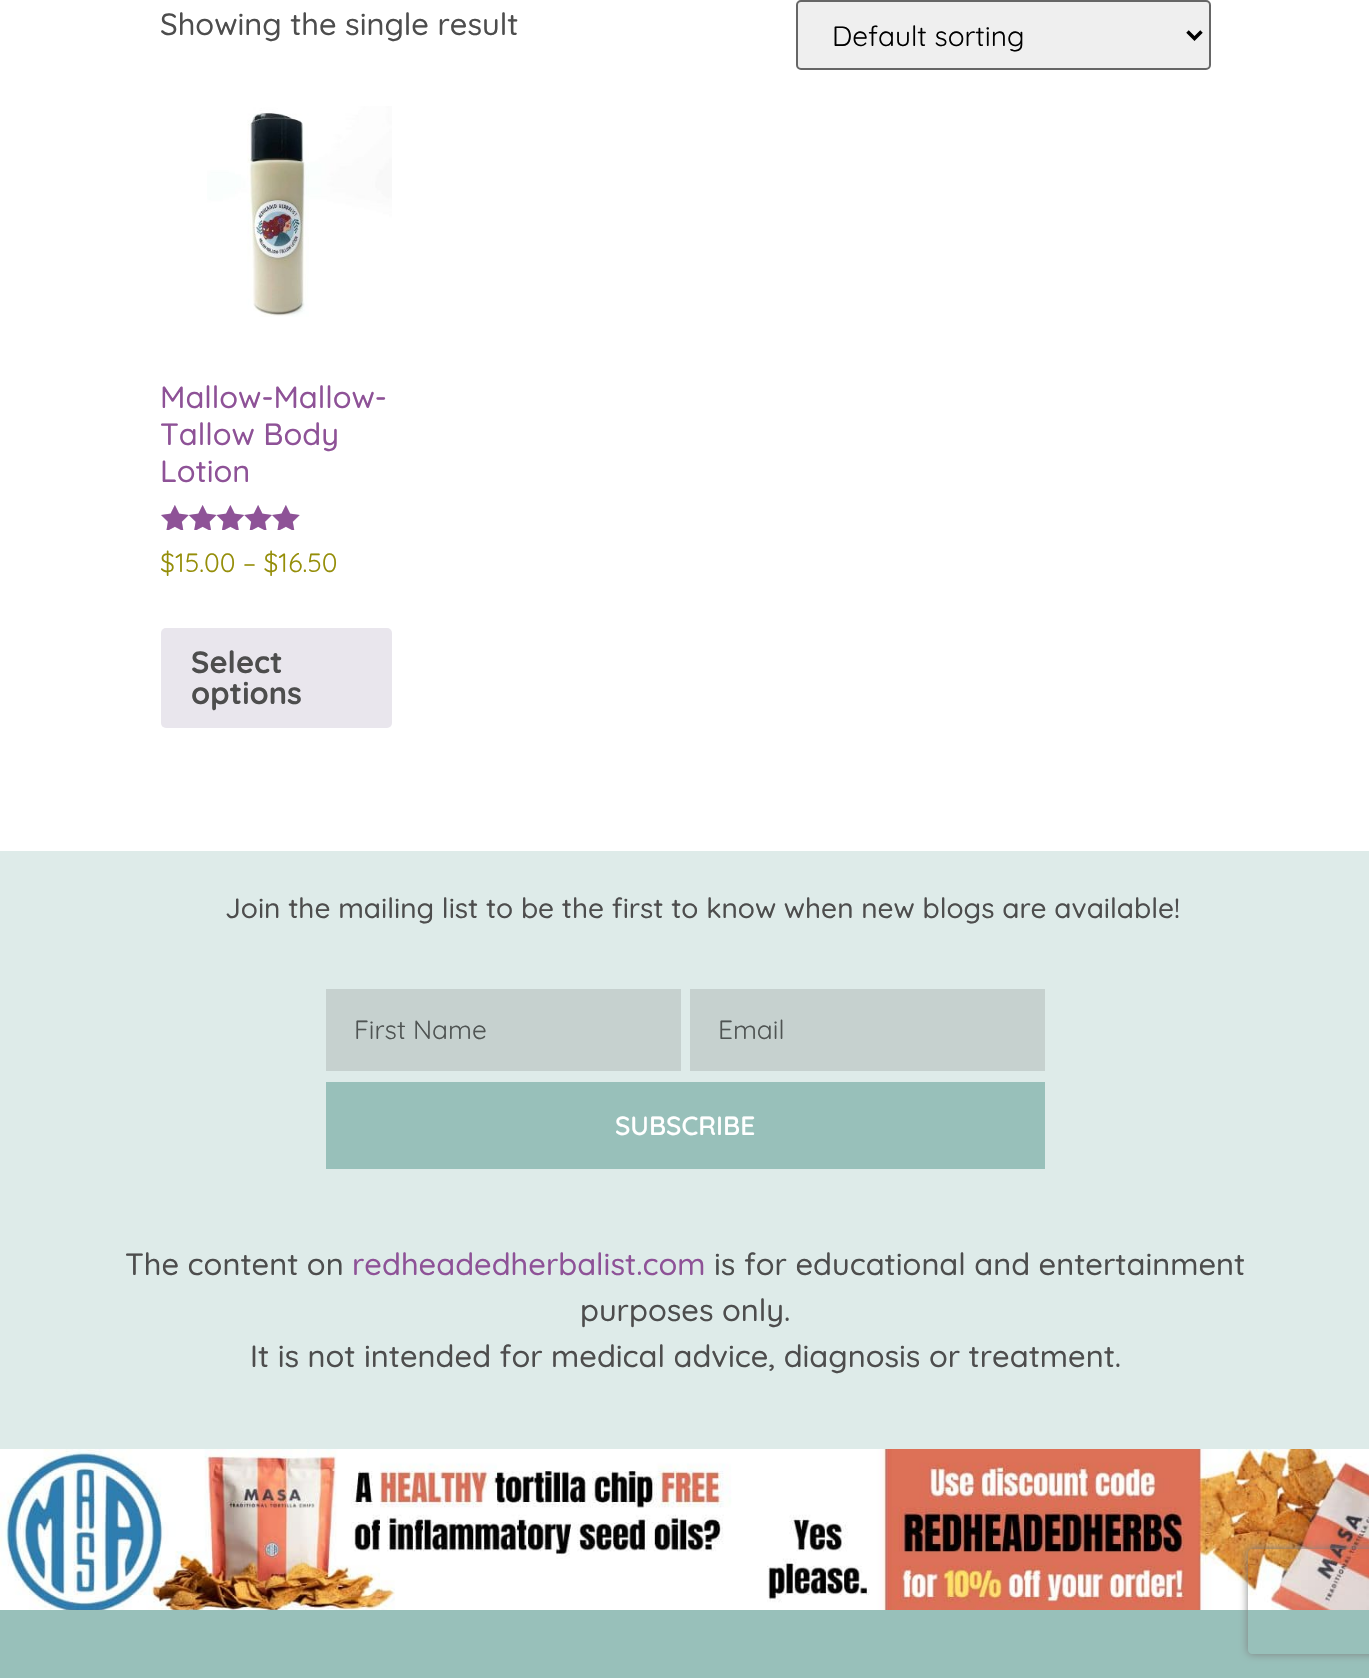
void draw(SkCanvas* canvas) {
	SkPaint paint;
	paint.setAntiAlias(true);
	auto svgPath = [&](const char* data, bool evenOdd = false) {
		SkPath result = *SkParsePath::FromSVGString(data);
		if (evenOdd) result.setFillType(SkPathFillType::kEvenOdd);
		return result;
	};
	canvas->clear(0xffffffff);
	SkFont f1(fontMgr->matchFamilyStyle("Quicksand", SkFontStyle(500, SkFontStyle::kNormal_Width, SkFontStyle::kUpright_Slant)), 30.8);
	f1.setSubpixel(true);
	paint.setColor(0xff4d4d4d);
	canvas->drawString("Showing the single result", 160, 35, f1, paint);
	paint.setColor(0xffefefef);
	canvas->drawRoundRect(SkRect::MakeXYWH(797, 1, 413, 68), 4, 4, paint);
	paint.setStroke(true);
	paint.setStrokeWidth(2);
	paint.setColor(0xff666666);
	canvas->drawRoundRect(SkRect::MakeXYWH(797, 1, 413, 68), 4, 4, paint);
	paint.setStrokeWidth(3.5);
	paint.setColor(0xff000000);
	canvas->drawPath(svgPath("M1187.5 31.5L1194.5 38.5L1201.5 31.5"), paint);
	SkFont f2(fontMgr->matchFamilyStyle("Quicksand", SkFontStyle::Normal()), 28);
	f2.setSubpixel(true);
	paint.setStroke(false);
	canvas->drawString("Default sorting", 832, 46, f2, paint);
	canvas->drawImageRect(SkImages::DeferredFromEncodedData(SkData::MakeFromFileName("img1.png")), SkRect::MakeXYWH(207, 106, 185, 211), SkSamplingOptions());
	paint.setColor(0xff8e5297);
	canvas->drawString("Mallow-Mallow-", 160, 408, f1, paint);
	canvas->drawString("Tallow Body", 160, 445, f1, paint);
	canvas->drawString("Lotion", 160, 482, f1, paint);
	canvas->drawImageRect(SkImages::DeferredFromEncodedData(SkData::MakeFromFileName("img2.png")), SkRect::MakeXYWH(161, 505, 139, 25), SkSamplingOptions());
	canvas->drawImageRect(SkImages::DeferredFromEncodedData(SkData::MakeFromFileName("img3.png")), SkRect::MakeXYWH(161, 505, 139, 25), SkSamplingOptions());
	SkFont f3(fontMgr->matchFamilyStyle("Quicksand", SkFontStyle::Normal()), 26.5);
	f3.setSubpixel(true);
	paint.setColor(0xff958e09);
	canvas->drawString("$15.00 – $16.50", 160, 572, f3, paint);
	paint.setColor(0xffe9e6ed);
	canvas->drawRoundRect(SkRect::MakeXYWH(161, 628, 231, 100), 5, 5, paint);
	SkFont f4(fontMgr->matchFamilyStyle("Quicksand", SkFontStyle::Bold()), 30.8);
	f4.setSubpixel(true);
	paint.setColor(0xff4d4d4d);
	canvas->drawString("Select", 191, 673, f4, paint);
	canvas->drawString("options", 191, 704, f4, paint);
	paint.setColor(0xffdeebe9);
	canvas->drawRect(SkRect::MakeXYWH(0, 851, 1369, 598), paint);
	SkFont f5(fontMgr->matchFamilyStyle("Quicksand", SkFontStyle(500, SkFontStyle::kNormal_Width, SkFontStyle::kUpright_Slant)), 28);
	f5.setSubpixel(true);
	paint.setColor(0xff4d4d4d);
	canvas->drawString("Join the mailing list to be the first to know when new blogs are available!", 225, 918, f5, paint);
	paint.setColor(0xffc6d1cf);
	canvas->drawRect(SkRect::MakeXYWH(326, 989, 355, 82), paint);
	SkFont f6(fontMgr->matchFamilyStyle("Quicksand", SkFontStyle::Normal()), 26.25);
	f6.setSubpixel(true);
	paint.setColor(0xff4f5453);
	canvas->drawString("First Name", 354, 1039, f6, paint);
	paint.setColor(0xffc6d1cf);
	canvas->drawRect(SkRect::MakeXYWH(690, 989, 355, 82), paint);
	paint.setColor(0xff4f5453);
	canvas->drawString("Email", 718, 1039, f6, paint);
	paint.setColor(0xff98c0ba);
	canvas->drawRect(SkRect::MakeXYWH(326, 1082, 719, 87), paint);
	SkFont f7(fontMgr->matchFamilyStyle("Quicksand", SkFontStyle(600, SkFontStyle::kNormal_Width, SkFontStyle::kUpright_Slant)), 26.25);
	f7.setSubpixel(true);
	paint.setColor(0xffffffff);
	canvas->drawString("SUBSCRIBE", 615, 1135, f7, paint);
	canvas->drawImageRect(SkImages::DeferredFromEncodedData(SkData::MakeFromFileName("img4.png")), SkRect::MakeXYWH(0, 1449, 1369, 161), SkSamplingOptions());
	paint.setColor(0xff98c0ba);
	canvas->drawRect(SkRect::MakeXYWH(0, 1610, 1369, 68), paint);
	canvas->save();
	canvas->clipPath(svgPath("M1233 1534H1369V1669H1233ZM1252 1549H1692C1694 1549 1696 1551 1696 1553V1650C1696 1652 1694 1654 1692 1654H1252C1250 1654 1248 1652 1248 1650V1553C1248 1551 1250 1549 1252 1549Z", true), true);
	paint.setColor(0xff808080);
	paint.setMaskFilter(SkMaskFilter::MakeBlur(kNormal_SkBlurStyle, 4.5));
	canvas->drawRoundRect(SkRect::MakeXYWH(1248, 1549, 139, 105), 4, 4, paint);
	paint.setMaskFilter(nullptr);
	canvas->restore();
	paint.setColor(0xff4d4d4d);
	canvas->drawString("The content on", 125, 1275, f1, paint);
	paint.setColor(0xff8e5297);
	canvas->drawString("redheadedherbalist.com", 352, 1275, f1, paint);
	paint.setColor(0xff4d4d4d);
	canvas->drawString("is for educational and entertainment", 714, 1275, f1, paint);
	canvas->drawString("purposes only.", 580, 1321, f1, paint);
	canvas->drawString("It is not intended for medical advice, diagnosis or treatment.", 250, 1367, f1, paint);
}
